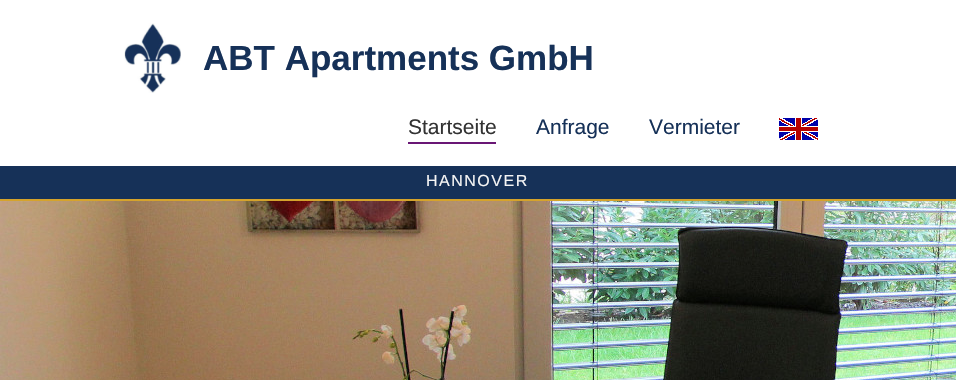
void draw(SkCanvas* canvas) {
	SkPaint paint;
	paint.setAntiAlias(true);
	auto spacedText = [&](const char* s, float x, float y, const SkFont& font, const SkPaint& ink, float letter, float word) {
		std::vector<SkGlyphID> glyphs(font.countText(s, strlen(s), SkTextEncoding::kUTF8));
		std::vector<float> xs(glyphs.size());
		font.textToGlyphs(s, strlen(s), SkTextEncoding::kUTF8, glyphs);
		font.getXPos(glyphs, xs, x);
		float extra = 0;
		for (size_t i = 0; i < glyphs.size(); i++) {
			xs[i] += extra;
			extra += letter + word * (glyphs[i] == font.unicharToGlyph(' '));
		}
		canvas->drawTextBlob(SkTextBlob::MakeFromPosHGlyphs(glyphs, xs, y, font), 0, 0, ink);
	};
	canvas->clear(0xffffffff);
	canvas->drawImageRect(SkImages::DeferredFromEncodedData(SkData::MakeFromFileName("img1.png")), SkRect::MakeXYWH(124, 23, 57, 70), SkSamplingOptions());
	SkFont f1(fontMgr->matchFamilyStyle("Liberation Sans", SkFontStyle::Bold()), 35);
	f1.setSubpixel(true);
	paint.setColor(0xff163158);
	canvas->drawString("ABT Apartments GmbH", 203, 70, f1, paint);
	paint.setColor(0xff691775);
	canvas->drawRect(SkRect::MakeXYWH(408, 142, 88, 2), paint);
	SkFont f2(fontMgr->matchFamilyStyle("Liberation Sans", SkFontStyle::Normal()), 21);
	f2.setSubpixel(true);
	paint.setColor(0xff333333);
	canvas->drawString("Startseite", 408, 134, f2, paint);
	paint.setColor(0xff163158);
	canvas->drawString("Anfrage", 536, 134, f2, paint);
	canvas->drawString("Vermieter", 649, 134, f2, paint);
	canvas->drawImageRect(SkImages::DeferredFromEncodedData(SkData::MakeFromFileName("img2.png")), SkRect::MakeXYWH(779, 118, 39, 22), SkSamplingOptions());
	canvas->drawRect(SkRect::MakeXYWH(0, 166, 956, 33), paint);
	paint.setColor(0xffd5a32c);
	canvas->drawRect(SkRect::MakeXYWH(0, 199, 956, 2), paint);
	SkFont f3(fontMgr->matchFamilyStyle("Liberation Sans", SkFontStyle::Normal()), 16);
	f3.setSubpixel(true);
	paint.setColor(0xfff5f5f5);
	spacedText("HANNOVER", 426, 186, f3, paint, 1.5, 0);
	canvas->drawImageRect(SkImages::DeferredFromEncodedData(SkData::MakeFromFileName("img3.png")), SkRect::MakeXYWH(0, 201, 956, 179), SkSamplingOptions());
}
